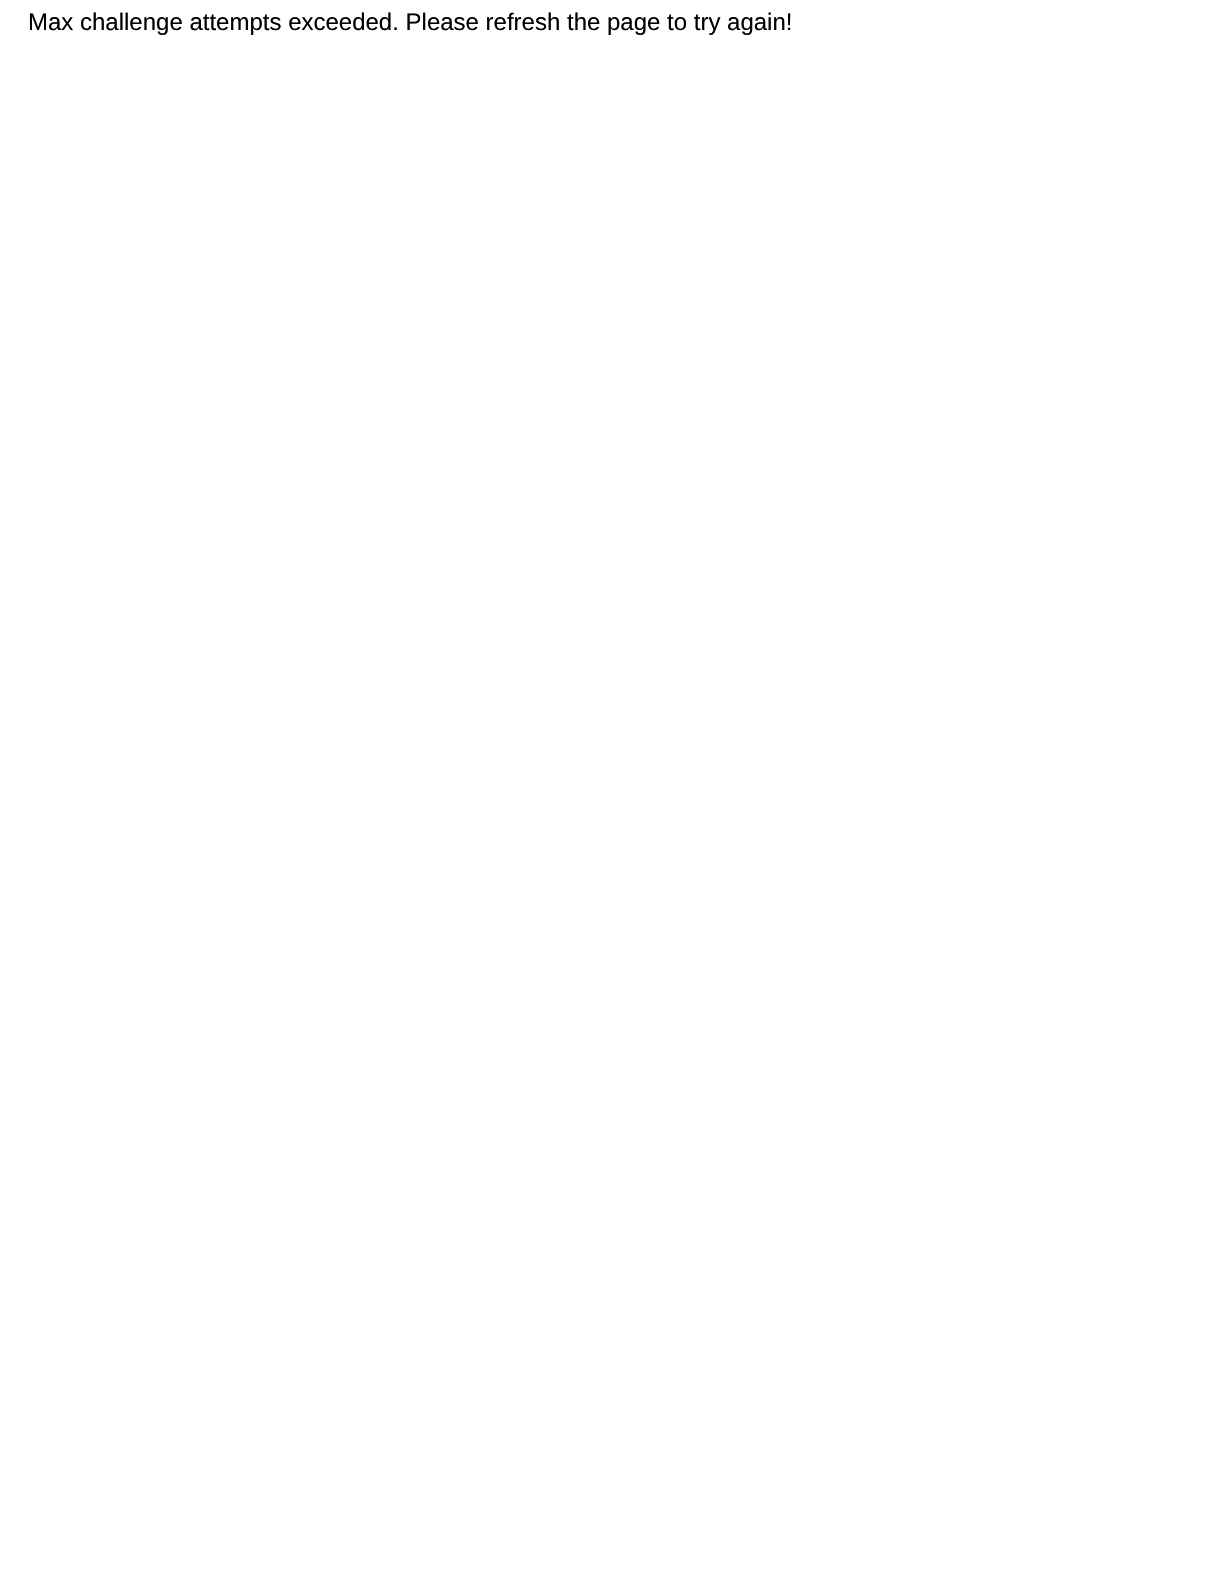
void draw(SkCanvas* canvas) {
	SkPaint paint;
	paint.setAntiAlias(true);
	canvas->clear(0xffffffff);
	SkFont f1(fontMgr->matchFamilyStyle("Liberation Sans", SkFontStyle::Normal()), 24);
	f1.setSubpixel(true);
	paint.setColor(0xff000000);
	canvas->drawString("Max challenge attempts exceeded. Please refresh the page to try again!", 28, 30, f1, paint);
}
